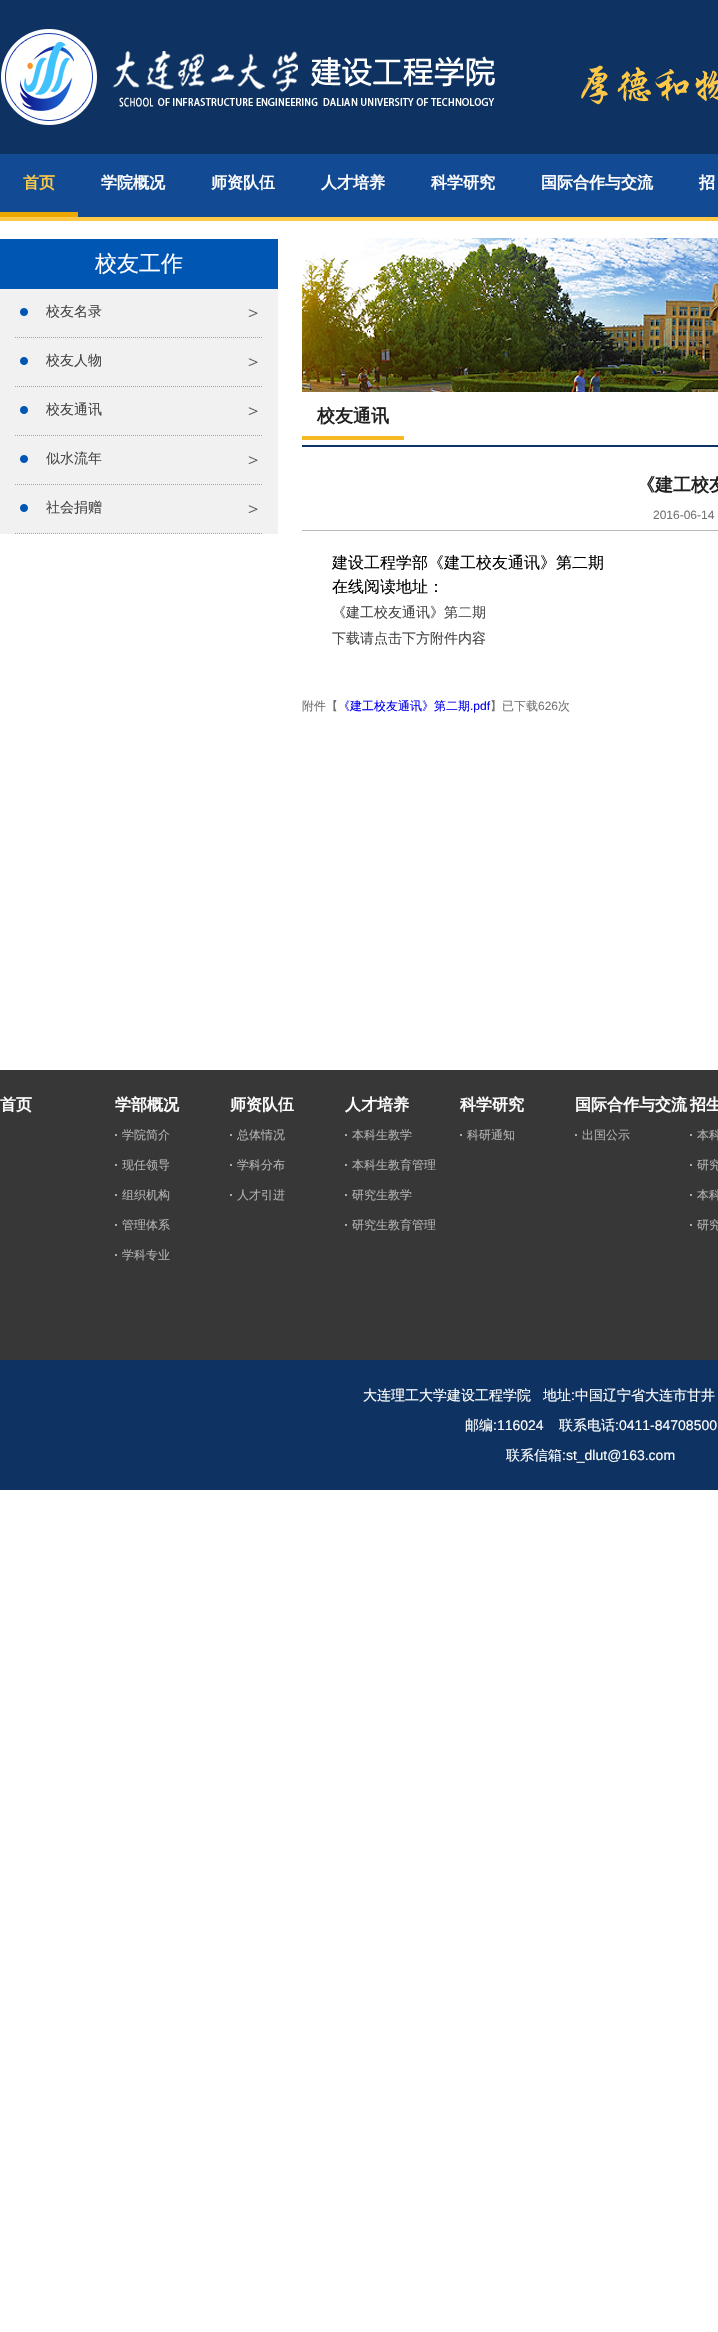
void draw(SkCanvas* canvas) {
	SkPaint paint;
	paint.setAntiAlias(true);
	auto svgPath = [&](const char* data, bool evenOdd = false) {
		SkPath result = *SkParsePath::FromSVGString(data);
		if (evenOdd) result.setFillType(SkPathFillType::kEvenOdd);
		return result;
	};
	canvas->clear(0xffffffff);
	paint.setColor(0xff0e3362);
	canvas->drawRect(SkRect::MakeXYWH(0, 0, 718, 154), paint);
	canvas->drawImageRect(SkImages::DeferredFromEncodedData(SkData::MakeFromFileName("img1.png")), SkRect::MakeXYWH(1, 29, 717, 96), SkSamplingOptions());
	paint.setColor(0xff124b93);
	canvas->drawRect(SkRect::MakeXYWH(0, 154, 718, 63), paint);
	paint.setColor(0xffffc947);
	canvas->drawRect(SkRect::MakeXYWH(0, 217, 718, 4), paint);
	paint.setColor(0xffeca700);
	canvas->drawRect(SkRect::MakeXYWH(0, 212, 78, 5), paint);
	SkFont f1(fontMgr->matchFamilyStyle("WenQuanYi Zen Hei", SkFontStyle::Bold()), 16);
	f1.setSubpixel(true);
	paint.setColor(0xffffc947);
	canvas->drawString("首页", 23, 188, f1, paint);
	paint.setColor(0xffffffff);
	canvas->drawString("学院概况", 101, 188, f1, paint);
	canvas->drawString("师资队伍", 211, 188, f1, paint);
	canvas->drawString("人才培养", 321, 188, f1, paint);
	canvas->drawString("科学研究", 431, 188, f1, paint);
	canvas->drawString("国际合作与交流", 541, 188, f1, paint);
	canvas->drawString("招", 699, 188, f1, paint);
	paint.setColor(0xff0057b3);
	canvas->drawRect(SkRect::MakeXYWH(0, 239, 278, 50), paint);
	SkFont f2(fontMgr->matchFamilyStyle("WenQuanYi Zen Hei", SkFontStyle(500, SkFontStyle::kNormal_Width, SkFontStyle::kUpright_Slant)), 22);
	f2.setSubpixel(true);
	paint.setColor(0xffffffff);
	canvas->drawString("校友工作", 95, 271, f2, paint);
	paint.setColor(0xfff1f1f1);
	canvas->drawRect(SkRect::MakeXYWH(0, 289, 278, 245), paint);
	canvas->drawImageRect(SkImages::DeferredFromEncodedData(SkData::MakeFromFileName("img2.png")), SkRect::MakeXYWH(20, 308, 238, 9), SkSamplingOptions());
	paint.setStroke(true);
	paint.setStrokeWidth(1);
	paint.setColor(0xffa4a4a4);
	paint.setPathEffect(SkDashPathEffect::Make({{1, 1}}, 0));
	canvas->drawPath(svgPath("M15 337.5H263"), paint);
	paint.setPathEffect(nullptr);
	SkFont f3(fontMgr->matchFamilyStyle("WenQuanYi Zen Hei", SkFontStyle(500, SkFontStyle::kNormal_Width, SkFontStyle::kUpright_Slant)), 14);
	f3.setSubpixel(true);
	paint.setStroke(false);
	paint.setColor(0xff474747);
	canvas->drawString("校友名录", 46, 316, f3, paint);
	canvas->drawImageRect(SkImages::DeferredFromEncodedData(SkData::MakeFromFileName("img2.png")), SkRect::MakeXYWH(20, 357, 238, 9), SkSamplingOptions());
	paint.setStroke(true);
	paint.setColor(0xffa4a4a4);
	paint.setPathEffect(SkDashPathEffect::Make({{1, 1}}, 0));
	canvas->drawPath(svgPath("M15 386.5H263"), paint);
	paint.setPathEffect(nullptr);
	paint.setStroke(false);
	paint.setColor(0xff474747);
	canvas->drawString("校友人物", 46, 365, f3, paint);
	canvas->drawImageRect(SkImages::DeferredFromEncodedData(SkData::MakeFromFileName("img2.png")), SkRect::MakeXYWH(20, 406, 238, 9), SkSamplingOptions());
	paint.setStroke(true);
	paint.setColor(0xffa4a4a4);
	paint.setPathEffect(SkDashPathEffect::Make({{1, 1}}, 0));
	canvas->drawPath(svgPath("M15 435.5H263"), paint);
	paint.setPathEffect(nullptr);
	paint.setStroke(false);
	paint.setColor(0xff474747);
	canvas->drawString("校友通讯", 46, 414, f3, paint);
	canvas->drawImageRect(SkImages::DeferredFromEncodedData(SkData::MakeFromFileName("img2.png")), SkRect::MakeXYWH(20, 455, 238, 9), SkSamplingOptions());
	paint.setStroke(true);
	paint.setColor(0xffa4a4a4);
	paint.setPathEffect(SkDashPathEffect::Make({{1, 1}}, 0));
	canvas->drawPath(svgPath("M15 484.5H263"), paint);
	paint.setPathEffect(nullptr);
	paint.setStroke(false);
	paint.setColor(0xff474747);
	canvas->drawString("似水流年", 46, 463, f3, paint);
	canvas->drawImageRect(SkImages::DeferredFromEncodedData(SkData::MakeFromFileName("img2.png")), SkRect::MakeXYWH(20, 504, 238, 9), SkSamplingOptions());
	paint.setStroke(true);
	paint.setColor(0xffa4a4a4);
	paint.setPathEffect(SkDashPathEffect::Make({{1, 1}}, 0));
	canvas->drawPath(svgPath("M15 533.5H263"), paint);
	paint.setPathEffect(nullptr);
	paint.setStroke(false);
	paint.setColor(0xff474747);
	canvas->drawString("社会捐赠", 46, 512, f3, paint);
	canvas->drawImageRect(SkImages::DeferredFromEncodedData(SkData::MakeFromFileName("img3.png")), SkRect::MakeXYWH(302, 238, 416, 154), SkSamplingOptions());
	paint.setColor(0xff0e3362);
	canvas->drawRect(SkRect::MakeXYWH(302, 445, 416, 2), paint);
	paint.setColor(0xfff7b923);
	canvas->drawRect(SkRect::MakeXYWH(302, 436, 102, 4), paint);
	SkFont f4(fontMgr->matchFamilyStyle("WenQuanYi Zen Hei", SkFontStyle::Bold()), 18);
	f4.setSubpixel(true);
	paint.setColor(0xff232222);
	canvas->drawString("校友通讯", 317, 422, f4, paint);
	paint.setColor(0xffb9b9b9);
	canvas->drawRect(SkRect::MakeXYWH(302, 530, 416, 1), paint);
	paint.setColor(0xff232222);
	canvas->drawString("《建工校友", 637, 491, f4, paint);
	SkFont f5(fontMgr->matchFamilyStyle("Liberation Sans", SkFontStyle::Normal()), 12);
	f5.setSubpixel(true);
	paint.setColor(0xff727272);
	canvas->drawString("2016-06-14", 653, 519, f5, paint);
	SkFont f6(fontMgr->matchFamilyStyle("WenQuanYi Zen Hei", SkFontStyle(500, SkFontStyle::kNormal_Width, SkFontStyle::kUpright_Slant)), 16);
	f6.setSubpixel(true);
	paint.setColor(0xff000000);
	canvas->drawString("建设工程学部《建工校友通讯》第二期", 332, 568, f6, paint);
	canvas->drawString("在线阅读地址：", 332, 592, f6, paint);
	paint.setColor(0xff474747);
	canvas->drawString("《建工校友通讯》第二期", 332, 617, f3, paint);
	canvas->drawString("下载请点击下方附件内容", 332, 643, f3, paint);
	SkFont f7(fontMgr->matchFamilyStyle("WenQuanYi Zen Hei", SkFontStyle(500, SkFontStyle::kNormal_Width, SkFontStyle::kUpright_Slant)), 12);
	f7.setSubpixel(true);
	paint.setColor(0xff727272);
	canvas->drawString("附件【", 302, 710, f7, paint);
	paint.setColor(0xff0000ee);
	canvas->drawString("《建工校友通讯》第二期", 338, 710, f7, paint);
	canvas->drawString(".pdf", 470, 710, f5, paint);
	paint.setColor(0xff727272);
	canvas->drawString("】已下载", 490, 710, f7, paint);
	canvas->drawString("626", 538, 710, f5, paint);
	canvas->drawString("次", 558, 710, f7, paint);
	paint.setColor(0xff373737);
	canvas->drawRect(SkRect::MakeXYWH(0, 1070, 718, 290), paint);
	paint.setColor(0xffffffff);
	canvas->drawString("首页", 0, 1110, f1, paint);
	canvas->drawString("学部概况", 115, 1110, f1, paint);
	paint.setColor(0xffababab);
	canvas->drawRect(SkRect::MakeXYWH(115, 1134, 2, 2), paint);
	paint.setColor(0xffb1b1b1);
	canvas->drawString("学院简介", 122, 1139, f7, paint);
	paint.setColor(0xffababab);
	canvas->drawRect(SkRect::MakeXYWH(115, 1164, 2, 2), paint);
	paint.setColor(0xffb1b1b1);
	canvas->drawString("现任领导", 122, 1169, f7, paint);
	paint.setColor(0xffababab);
	canvas->drawRect(SkRect::MakeXYWH(115, 1194, 2, 2), paint);
	paint.setColor(0xffb1b1b1);
	canvas->drawString("组织机构", 122, 1199, f7, paint);
	paint.setColor(0xffababab);
	canvas->drawRect(SkRect::MakeXYWH(115, 1224, 2, 2), paint);
	paint.setColor(0xffb1b1b1);
	canvas->drawString("管理体系", 122, 1229, f7, paint);
	paint.setColor(0xffababab);
	canvas->drawRect(SkRect::MakeXYWH(115, 1254, 2, 2), paint);
	paint.setColor(0xffb1b1b1);
	canvas->drawString("学科专业", 122, 1259, f7, paint);
	paint.setColor(0xffffffff);
	canvas->drawString("师资队伍", 230, 1110, f1, paint);
	paint.setColor(0xffababab);
	canvas->drawRect(SkRect::MakeXYWH(230, 1134, 2, 2), paint);
	paint.setColor(0xffb1b1b1);
	canvas->drawString("总体情况", 237, 1139, f7, paint);
	paint.setColor(0xffababab);
	canvas->drawRect(SkRect::MakeXYWH(230, 1164, 2, 2), paint);
	paint.setColor(0xffb1b1b1);
	canvas->drawString("学科分布", 237, 1169, f7, paint);
	paint.setColor(0xffababab);
	canvas->drawRect(SkRect::MakeXYWH(230, 1194, 2, 2), paint);
	paint.setColor(0xffb1b1b1);
	canvas->drawString("人才引进", 237, 1199, f7, paint);
	paint.setColor(0xffffffff);
	canvas->drawString("人才培养", 345, 1110, f1, paint);
	paint.setColor(0xffababab);
	canvas->drawRect(SkRect::MakeXYWH(345, 1134, 2, 2), paint);
	paint.setColor(0xffb1b1b1);
	canvas->drawString("本科生教学", 352, 1139, f7, paint);
	paint.setColor(0xffababab);
	canvas->drawRect(SkRect::MakeXYWH(345, 1164, 2, 2), paint);
	paint.setColor(0xffb1b1b1);
	canvas->drawString("本科生教育管理", 352, 1169, f7, paint);
	paint.setColor(0xffababab);
	canvas->drawRect(SkRect::MakeXYWH(345, 1194, 2, 2), paint);
	paint.setColor(0xffb1b1b1);
	canvas->drawString("研究生教学", 352, 1199, f7, paint);
	paint.setColor(0xffababab);
	canvas->drawRect(SkRect::MakeXYWH(345, 1224, 2, 2), paint);
	paint.setColor(0xffb1b1b1);
	canvas->drawString("研究生教育管理", 352, 1229, f7, paint);
	paint.setColor(0xffffffff);
	canvas->drawString("科学研究", 460, 1110, f1, paint);
	paint.setColor(0xffababab);
	canvas->drawRect(SkRect::MakeXYWH(460, 1134, 2, 2), paint);
	paint.setColor(0xffb1b1b1);
	canvas->drawString("科研通知", 467, 1139, f7, paint);
	paint.setColor(0xffffffff);
	canvas->drawString("国际合作与交流", 575, 1110, f1, paint);
	paint.setColor(0xffababab);
	canvas->drawRect(SkRect::MakeXYWH(575, 1134, 2, 2), paint);
	paint.setColor(0xffb1b1b1);
	canvas->drawString("出国公示", 582, 1139, f7, paint);
	paint.setColor(0xffffffff);
	canvas->drawString("招生", 690, 1110, f1, paint);
	paint.setColor(0xffababab);
	canvas->drawRect(SkRect::MakeXYWH(690, 1134, 2, 2), paint);
	paint.setColor(0xffb1b1b1);
	canvas->drawString("本科", 697, 1139, f7, paint);
	paint.setColor(0xffababab);
	canvas->drawRect(SkRect::MakeXYWH(690, 1164, 2, 2), paint);
	paint.setColor(0xffb1b1b1);
	canvas->drawString("研究", 697, 1169, f7, paint);
	paint.setColor(0xffababab);
	canvas->drawRect(SkRect::MakeXYWH(690, 1194, 2, 2), paint);
	paint.setColor(0xffb1b1b1);
	canvas->drawString("本科", 697, 1199, f7, paint);
	paint.setColor(0xffababab);
	canvas->drawRect(SkRect::MakeXYWH(690, 1224, 2, 2), paint);
	paint.setColor(0xffb1b1b1);
	canvas->drawString("研究", 697, 1229, f7, paint);
	paint.setColor(0xff0e3362);
	canvas->drawRect(SkRect::MakeXYWH(0, 1360, 718, 130), paint);
	paint.setColor(0xffffffff);
	canvas->drawString("大连理工大学建设工程学院", 363, 1400, f3, paint);
	canvas->drawString("地址", 543, 1400, f3, paint);
	SkFont f8(fontMgr->matchFamilyStyle("Liberation Sans", SkFontStyle::Normal()), 14);
	f8.setSubpixel(true);
	canvas->drawString(":", 571, 1400, f8, paint);
	canvas->drawString("中国辽宁省大连市甘井", 575, 1400, f3, paint);
	canvas->drawString("邮编", 465, 1430, f3, paint);
	canvas->drawString(":116024", 493, 1430, f8, paint);
	canvas->drawString("联系电话", 559, 1430, f3, paint);
	canvas->drawString(":0411-84708500", 615, 1430, f8, paint);
	canvas->drawString("联系信箱", 506, 1460, f3, paint);
	canvas->drawString(":st_dlut@163.com", 562, 1460, f8, paint);
}
